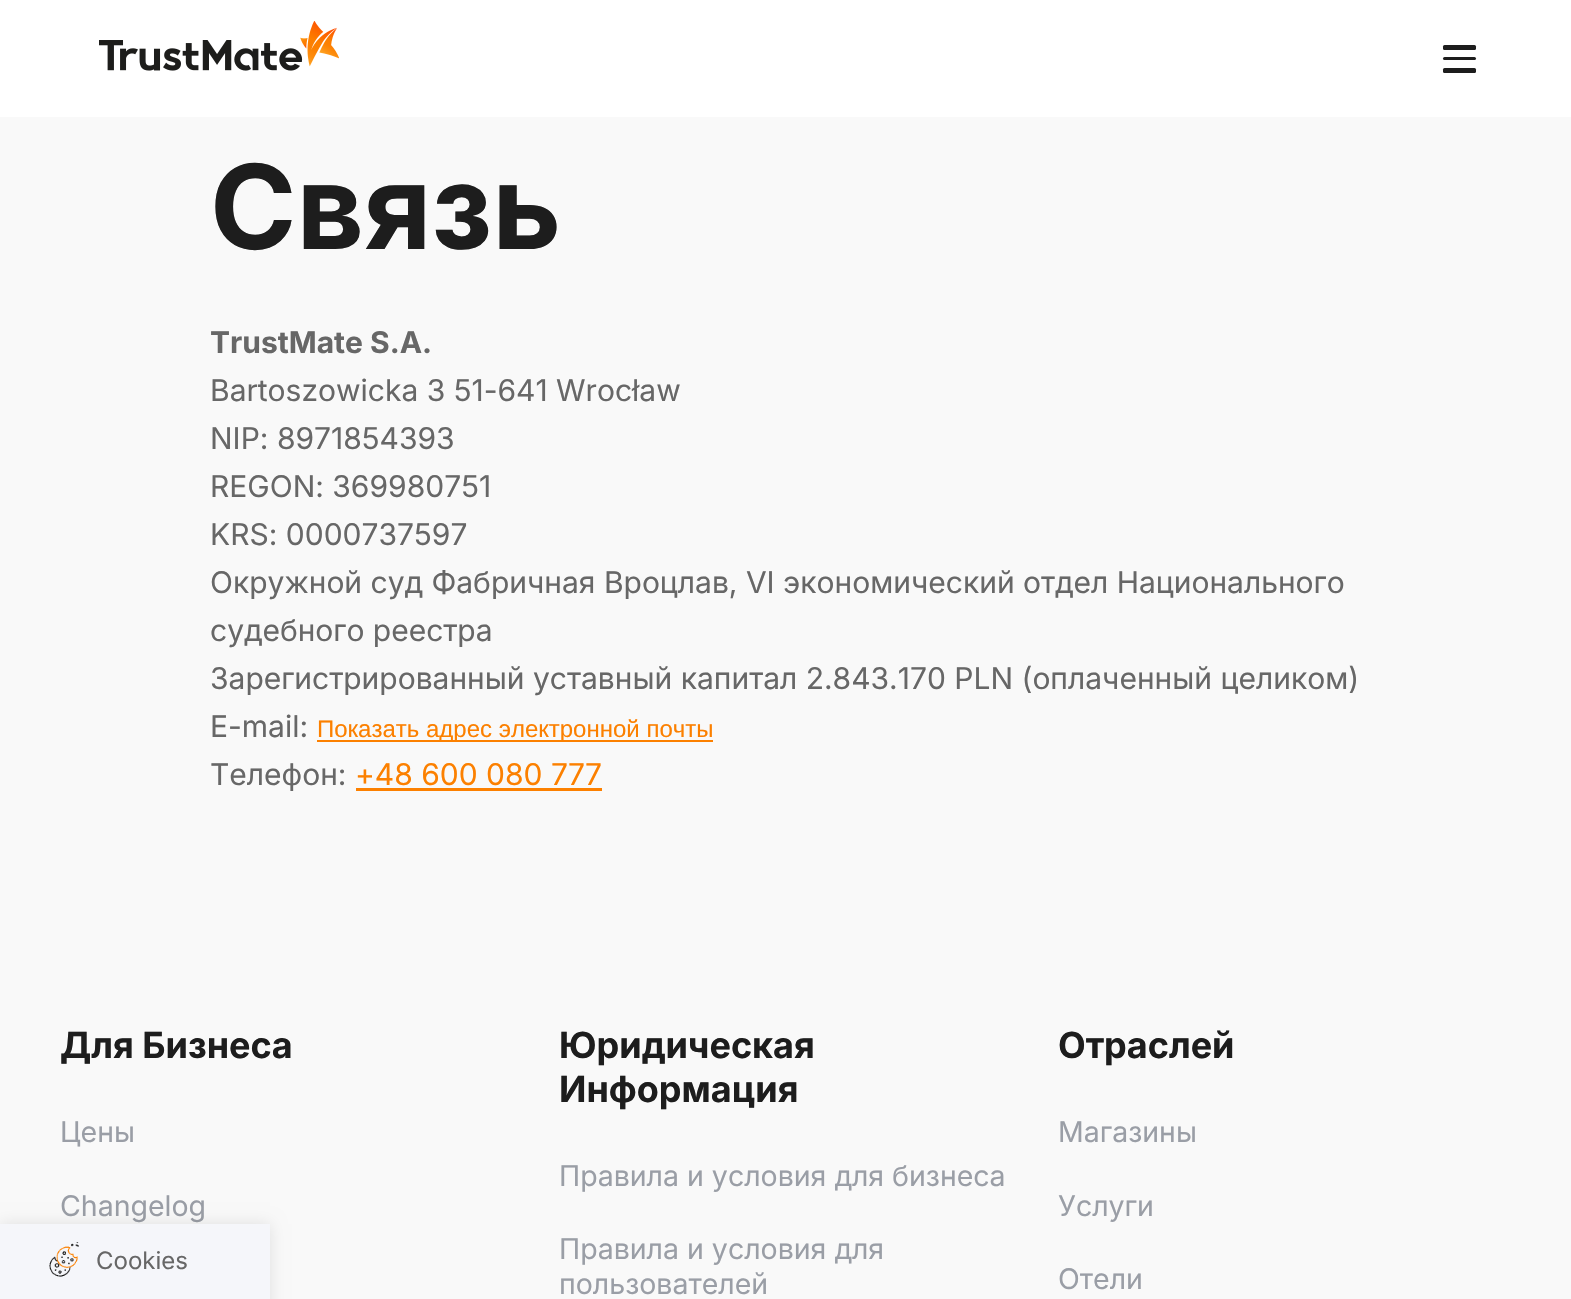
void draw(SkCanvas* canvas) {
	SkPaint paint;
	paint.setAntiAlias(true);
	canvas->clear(0xfff9f9f9);
	paint.setColor(0xffffffff);
	canvas->drawRect(SkRect::MakeXYWH(0, 0, 1571, 117), paint);
	canvas->drawImageRect(SkImages::DeferredFromEncodedData(SkData::MakeFromFileName("img1.png")), SkRect::MakeXYWH(99, 21, 240, 50), SkSamplingOptions());
	paint.setColor(0xff1d1d1d);
	canvas->drawRoundRect(SkRect::MakeXYWH(1443, 45, 33, 5), 1.5, 1.5, paint);
	canvas->drawRoundRect(SkRect::MakeXYWH(1443, 57, 33, 3), 1.5, 1.5, paint);
	canvas->drawRoundRect(SkRect::MakeXYWH(1443, 68, 33, 5), 1.5, 1.5, paint);
	SkFont f1(fontMgr->matchFamilyStyle("Inter", SkFontStyle::Bold()), 117);
	f1.setSubpixel(true);
	canvas->drawString("Связь", 210, 249, f1, paint);
	SkFont f2(fontMgr->matchFamilyStyle("Inter", SkFontStyle::Bold()), 30);
	f2.setSubpixel(true);
	paint.setColor(0xff676767);
	canvas->drawString("TrustMate S.A.", 210, 353, f2, paint);
	SkFont f3(fontMgr->matchFamilyStyle("Inter", SkFontStyle::Normal()), 30);
	f3.setSubpixel(true);
	canvas->drawString("Bartoszowicka 3 51-641 Wrocław", 210, 401, f3, paint);
	canvas->drawString("NIP: 8971854393", 210, 449, f3, paint);
	canvas->drawString("REGON: 369980751", 210, 497, f3, paint);
	canvas->drawString("KRS: 0000737597", 210, 545, f3, paint);
	canvas->drawString("Окружной суд Фабричная Вроцлав, VI экономический отдел Национального", 210, 593, f3, paint);
	canvas->drawString("судебного реестра", 210, 641, f3, paint);
	canvas->drawString("Зарегистрированный уставный капитал 2.843.170 PLN (оплаченный целиком)", 210, 689, f3, paint);
	canvas->drawString("E-mail:", 210, 737, f3, paint);
	paint.setColor(0xfffc8000);
	canvas->drawRect(SkRect::MakeXYWH(317, 740, 396, 2), paint);
	SkFont f4(fontMgr->matchFamilyStyle("Liberation Sans", SkFontStyle::Normal()), 24);
	f4.setSubpixel(true);
	canvas->drawString("Показать адрес электронной почты", 317, 737, f4, paint);
	paint.setColor(0xff676767);
	canvas->drawString("Телефон:", 210, 785, f3, paint);
	paint.setColor(0xfffc8000);
	canvas->drawString("+48 600 080 777", 355, 785, f3, paint);
	canvas->drawRect(SkRect::MakeXYWH(356, 788, 246, 3), paint);
	SkFont f5(fontMgr->matchFamilyStyle("Inter", SkFontStyle::Bold()), 36);
	f5.setSubpixel(true);
	paint.setColor(0xff1d1d1d);
	canvas->drawString("Для Бизнеса", 60, 1058, f5, paint);
	SkFont f6(fontMgr->matchFamilyStyle("Inter", SkFontStyle::Normal()), 28.5);
	f6.setSubpixel(true);
	paint.setColor(0xff9a9ea6);
	canvas->drawString("Цены", 60, 1142, f6, paint);
	canvas->drawString("Changelog", 60, 1216, f6, paint);
	paint.setColor(0xff1d1d1d);
	canvas->drawString("Юридическая", 559, 1058, f5, paint);
	canvas->drawString("Информация", 559, 1102, f5, paint);
	paint.setColor(0xff9a9ea6);
	canvas->drawString("Правила и условия для бизнеса", 559, 1186, f6, paint);
	canvas->drawString("Правила и условия для", 559, 1259, f6, paint);
	canvas->drawString("пользователей", 559, 1294, f6, paint);
	paint.setColor(0xff1d1d1d);
	canvas->drawString("Отраслей", 1058, 1058, f5, paint);
	paint.setColor(0xff9a9ea6);
	canvas->drawString("Магазины", 1058, 1142, f6, paint);
	canvas->drawString("Услуги", 1058, 1216, f6, paint);
	canvas->drawString("Отели", 1058, 1289, f6, paint);
	paint.setColor(0x1a000000);
	paint.setMaskFilter(SkMaskFilter::MakeBlur(kNormal_SkBlurStyle, 7.5));
	canvas->drawRect(SkRect::MakeXYWH(0, 1224, 270, 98), paint);
	paint.setMaskFilter(nullptr);
	paint.setColor(0xfff5f6fa);
	canvas->drawRect(SkRect::MakeXYWH(0, 1224, 270, 75), paint);
	canvas->drawImageRect(SkImages::DeferredFromEncodedData(SkData::MakeFromFileName("img2.png")), SkRect::MakeXYWH(49, 1242, 30, 35), SkSamplingOptions());
	SkFont f7(fontMgr->matchFamilyStyle("Inter", SkFontStyle::Normal()), 24);
	f7.setSubpixel(true);
	paint.setColor(0xff676767);
	canvas->drawString("Cookies", 96, 1269, f7, paint);
}
